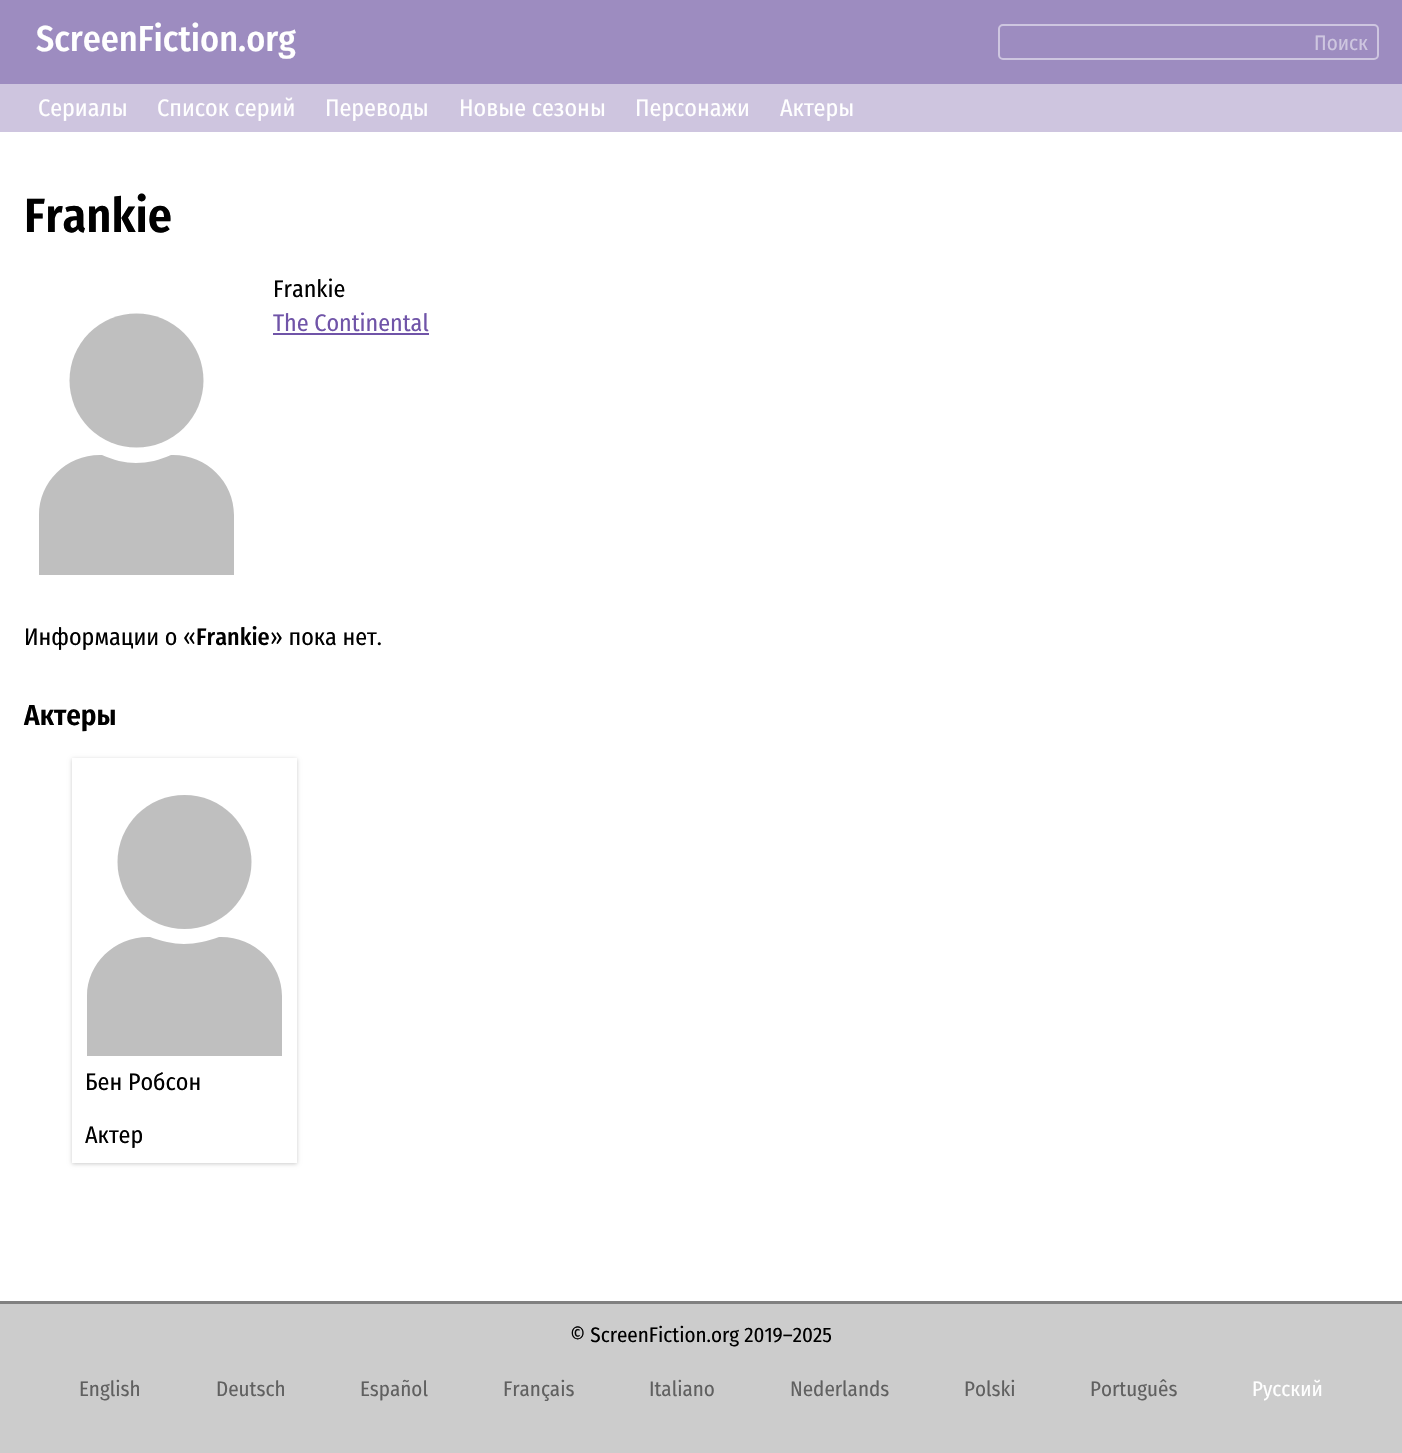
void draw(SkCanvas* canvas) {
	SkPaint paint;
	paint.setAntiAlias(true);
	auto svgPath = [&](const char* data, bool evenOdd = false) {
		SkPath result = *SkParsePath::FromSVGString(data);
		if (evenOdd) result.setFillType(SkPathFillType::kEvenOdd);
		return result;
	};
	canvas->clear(0xffffffff);
	paint.setColor(0xff9d8cc0);
	canvas->drawRect(SkRect::MakeXYWH(0, 0, 1402, 84), paint);
	SkFont f1(fontMgr->matchFamilyStyle("Fira Sans Condensed", SkFontStyle(500, SkFontStyle::kNormal_Width, SkFontStyle::kUpright_Slant)), 36);
	f1.setSubpixel(true);
	paint.setColor(0xffffffff);
	canvas->drawString("ScreenFiction.org", 36, 51, f1, paint);
	paint.setStroke(true);
	paint.setStrokeWidth(2);
	paint.setColor(0xffcec6e0);
	canvas->drawRoundRect(SkRect::MakeXYWH(999, 25, 379, 34), 4, 4, paint);
	SkFont f2(fontMgr->matchFamilyStyle("Fira Sans Condensed", SkFontStyle::Normal()), 21);
	f2.setSubpixel(true);
	paint.setStroke(false);
	canvas->drawString("Поиск", 1314, 50, f2, paint);
	paint.setColor(0xffcec5df);
	canvas->drawRect(SkRect::MakeXYWH(0, 84, 1402, 48), paint);
	SkFont f3(fontMgr->matchFamilyStyle("Fira Sans Condensed", SkFontStyle::Normal()), 24);
	f3.setSubpixel(true);
	paint.setColor(0xffffffff);
	canvas->drawString("Сериалы", 38, 116, f3, paint);
	canvas->drawString("Список серий", 157, 116, f3, paint);
	canvas->drawString("Переводы", 325, 116, f3, paint);
	canvas->drawString("Новые сезоны", 459, 116, f3, paint);
	canvas->drawString("Персонажи", 635, 116, f3, paint);
	canvas->drawString("Актеры", 780, 116, f3, paint);
	SkFont f4(fontMgr->matchFamilyStyle("Fira Sans Condensed", SkFontStyle(600, SkFontStyle::kNormal_Width, SkFontStyle::kUpright_Slant)), 48);
	f4.setSubpixel(true);
	paint.setColor(0xff000000);
	canvas->drawString("Frankie", 24, 232, f4, paint);
	canvas->drawString("Frankie", 273, 297, f3, paint);
	paint.setColor(0xff7054a8);
	canvas->drawString("The Continental", 273, 331, f3, paint);
	canvas->drawRect(SkRect::MakeXYWH(273, 333, 156, 2), paint);
	paint.setColor(0xffbfbfbf);
	canvas->drawCircle(136.5, 380.5, 67, paint);
	canvas->drawPath(svgPath("M100 455H102C113 460 125 463 136 463C148 463 160 460 171 455H173C207 455 234 482 234 515V575H39V515C39 482 66 455 100 455Z"), paint);
	paint.setColor(0xff000000);
	canvas->drawString("Информации о «", 24, 645, f3, paint);
	SkFont f5(fontMgr->matchFamilyStyle("Fira Sans Condensed", SkFontStyle(500, SkFontStyle::kNormal_Width, SkFontStyle::kUpright_Slant)), 24);
	f5.setSubpixel(true);
	canvas->drawString("Frankie", 196, 645, f5, paint);
	canvas->drawString("» пока нет.", 270, 645, f3, paint);
	SkFont f6(fontMgr->matchFamilyStyle("Fira Sans Condensed", SkFontStyle(600, SkFontStyle::kNormal_Width, SkFontStyle::kUpright_Slant)), 29);
	f6.setSubpixel(true);
	canvas->drawString("Актеры", 24, 725, f6, paint);
	paint.setColor(0x33000000);
	paint.setMaskFilter(SkMaskFilter::MakeBlur(kNormal_SkBlurStyle, 2));
	canvas->drawRect(SkRect::MakeXYWH(72, 759, 225, 405), paint);
	paint.setMaskFilter(nullptr);
	paint.setColor(0xffffffff);
	canvas->drawRect(SkRect::MakeXYWH(72, 758, 225, 405), paint);
	paint.setColor(0xffbfbfbf);
	canvas->drawCircle(184.5, 862, 67, paint);
	canvas->drawPath(svgPath("M148 937H150C161 941 173 944 184 944C196 944 208 941 219 937H221C255 937 282 964 282 996V1056H87V996C87 964 114 937 148 937Z"), paint);
	paint.setColor(0xff000000);
	canvas->drawString("Бен Робсон", 85, 1090, f3, paint);
	canvas->drawString("Актер", 85, 1143, f3, paint);
	paint.setColor(0xffcccccc);
	canvas->drawRect(SkRect::MakeXYWH(0, 1304, 1402, 149), paint);
	paint.setColor(0xff808080);
	canvas->drawRect(SkRect::MakeXYWH(0, 1301, 1402, 3), paint);
	paint.setColor(0xff000000);
	canvas->drawString("© ScreenFiction.org 2019–2025", 570, 1342, f2, paint);
	paint.setColor(0xff606060);
	canvas->drawString("English", 79, 1396, f2, paint);
	canvas->drawString("Deutsch", 216, 1396, f2, paint);
	canvas->drawString("Español", 360, 1396, f2, paint);
	canvas->drawString("Français", 503, 1396, f2, paint);
	canvas->drawString("Italiano", 649, 1396, f2, paint);
	canvas->drawString("Nederlands", 790, 1396, f2, paint);
	canvas->drawString("Polski", 964, 1396, f2, paint);
	canvas->drawString("Português", 1090, 1396, f2, paint);
	paint.setColor(0xffffffff);
	canvas->drawString("Русский", 1252, 1396, f2, paint);
}
